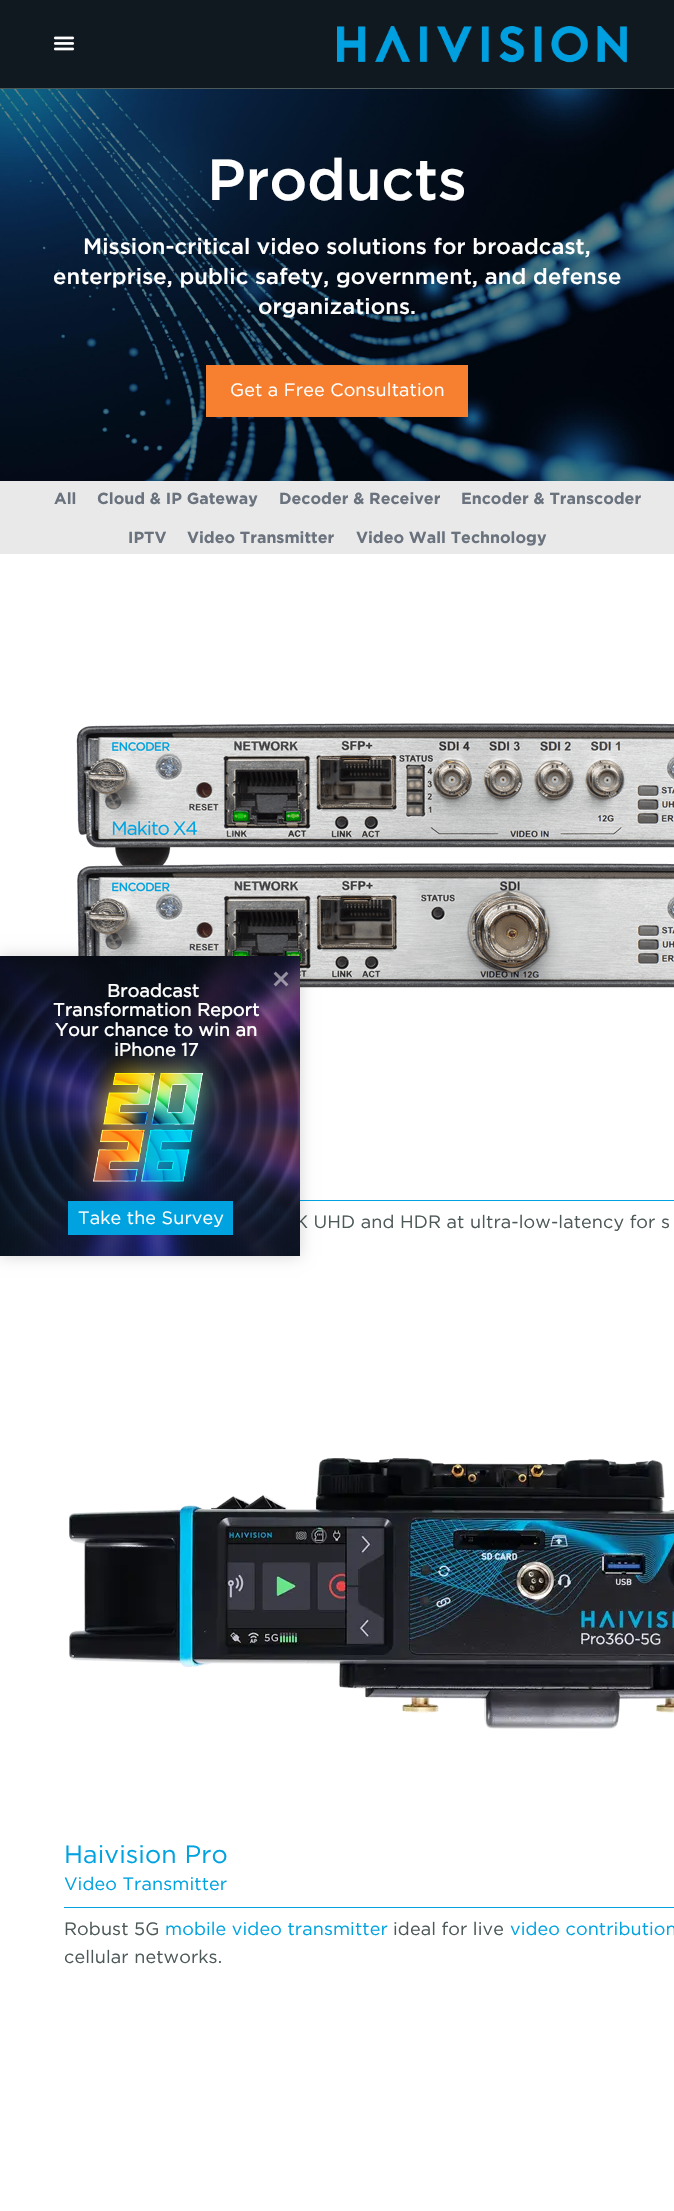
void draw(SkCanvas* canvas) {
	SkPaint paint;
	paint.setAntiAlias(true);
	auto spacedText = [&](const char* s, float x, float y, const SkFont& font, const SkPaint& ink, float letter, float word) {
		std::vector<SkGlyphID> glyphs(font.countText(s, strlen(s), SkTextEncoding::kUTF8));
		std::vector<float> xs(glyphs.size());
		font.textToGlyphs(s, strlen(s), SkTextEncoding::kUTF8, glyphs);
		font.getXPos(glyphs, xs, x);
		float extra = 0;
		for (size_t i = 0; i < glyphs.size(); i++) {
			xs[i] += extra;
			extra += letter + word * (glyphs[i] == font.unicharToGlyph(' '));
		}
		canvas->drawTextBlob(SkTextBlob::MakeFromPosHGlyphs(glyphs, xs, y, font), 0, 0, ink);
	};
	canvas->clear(0xffffffff);
	paint.setColor(0xff101820);
	canvas->drawRect(SkRect::MakeXYWH(0, 0, 674, 88), paint);
	paint.setColor(0xff4d5858);
	canvas->drawRect(SkRect::MakeXYWH(0, 88, 674, 1), paint);
	canvas->drawImageRect(SkImages::DeferredFromEncodedData(SkData::MakeFromFileName("img1.png")), SkRect::MakeXYWH(53, 36, 22, 15), SkSamplingOptions());
	canvas->drawImageRect(SkImages::DeferredFromEncodedData(SkData::MakeFromFileName("img2.png")), SkRect::MakeXYWH(337, 26, 290, 37), SkSamplingOptions());
	canvas->drawImageRect(SkImages::DeferredFromEncodedData(SkData::MakeFromFileName("img3.png")), SkRect::MakeXYWH(0, 89, 674, 392), SkSamplingOptions());
	SkFont f1(fontMgr->matchFamilyStyle("Gotham", SkFontStyle(500, SkFontStyle::kNormal_Width, SkFontStyle::kUpright_Slant)), 58);
	f1.setSubpixel(true);
	paint.setColor(0xffffffff);
	spacedText("Products", 207, 200, f1, paint, -0.25, 0);
	SkFont f2(fontMgr->matchFamilyStyle("Gotham", SkFontStyle(500, SkFontStyle::kNormal_Width, SkFontStyle::kUpright_Slant)), 22);
	f2.setSubpixel(true);
	spacedText("Mission-critical video solutions for broadcast,", 83, 254, f2, paint, 0.1, 0);
	spacedText("enterprise, public safety, government, and defense", 53, 284, f2, paint, 0.1, 0);
	spacedText("organizations.", 258, 314, f2, paint, 0.1, 0);
	paint.setColor(0xfff77f30);
	canvas->drawRect(SkRect::MakeXYWH(206, 365, 262, 52), paint);
	SkFont f3(fontMgr->matchFamilyStyle("Gotham", SkFontStyle::Normal()), 18);
	f3.setSubpixel(true);
	paint.setColor(0xffffffff);
	spacedText("Get a Free Consultation", 230, 396, f3, paint, 0.1, 0);
	paint.setColor(0xffe9e9e9);
	canvas->drawRect(SkRect::MakeXYWH(0, 481, 674, 73), paint);
	SkFont f4(fontMgr->matchFamilyStyle("Gotham", SkFontStyle::Bold()), 16);
	f4.setSubpixel(true);
	paint.setColor(0xff69727d);
	canvas->drawString("All", 54, 504, f4, paint);
	canvas->drawString("Cloud & IP Gateway", 97, 504, f4, paint);
	canvas->drawString("Decoder & Receiver", 279, 504, f4, paint);
	canvas->drawString("Encoder & Transcoder", 461, 504, f4, paint);
	canvas->drawString("IPTV", 128, 543, f4, paint);
	canvas->drawString("Video Transmitter", 187, 543, f4, paint);
	canvas->drawString("Video Wall Technology", 356, 543, f4, paint);
	canvas->drawImageRect(SkImages::DeferredFromEncodedData(SkData::MakeFromFileName("img4.png")), SkRect::MakeXYWH(76, 723, 598, 265), SkSamplingOptions());
	paint.setColor(0xff00a3e0);
	canvas->drawRect(SkRect::MakeXYWH(300, 1200, 374, 1), paint);
	paint.setColor(0xff4d5858);
	spacedText("K UHD and HDR at ultra-low-latency for s", 295, 1228, f3, paint, 0.1, 0);
	canvas->drawImageRect(SkImages::DeferredFromEncodedData(SkData::MakeFromFileName("img5.png")), SkRect::MakeXYWH(69, 1458, 605, 271), SkSamplingOptions());
	SkFont f5(fontMgr->matchFamilyStyle("Gotham", SkFontStyle::Normal()), 25);
	f5.setSubpixel(true);
	paint.setColor(0xff00a3e0);
	spacedText("Haivision Pro", 64, 1863, f5, paint, 0.1, 0);
	spacedText("Video Transmitter", 64, 1890, f3, paint, 0.1, 0);
	canvas->drawRect(SkRect::MakeXYWH(64, 1907, 610, 1), paint);
	paint.setColor(0xff4d5858);
	spacedText("Robust 5G", 64, 1935, f3, paint, 0.1, 0);
	paint.setColor(0xff00a3e0);
	spacedText("mobile video transmitter", 165, 1935, f3, paint, 0.1, 0);
	paint.setColor(0xff4d5858);
	spacedText("ideal for live", 393, 1935, f3, paint, 0.1, 0);
	paint.setColor(0xff00a3e0);
	spacedText("video contribution", 510, 1935, f3, paint, 0.1, 0);
	paint.setColor(0xff4d5858);
	spacedText("cellular networks.", 64, 1963, f3, paint, 0.1, 0);
	paint.setColor(0x2b000000);
	paint.setMaskFilter(SkMaskFilter::MakeBlur(kNormal_SkBlurStyle, 7.5));
	canvas->drawRect(SkRect::MakeXYWH(0, 956, 300, 300), paint);
	paint.setMaskFilter(nullptr);
	canvas->drawImageRect(SkImages::DeferredFromEncodedData(SkData::MakeFromFileName("img7.png")), SkRect::MakeXYWH(0, 956, 300, 300), SkSamplingOptions());
	canvas->drawImageRect(SkImages::DeferredFromEncodedData(SkData::MakeFromFileName("img6.png")), SkRect::MakeXYWH(273, 971, 16, 16), SkSamplingOptions());
	SkFont f6(fontMgr->matchFamilyStyle("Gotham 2", SkFontStyle::Bold()), 18);
	f6.setSubpixel(true);
	paint.setColor(0xffffffff);
	spacedText("Broadcast", 107, 997, f6, paint, 0.1, 0);
	spacedText("Transformation Report", 53, 1016, f6, paint, 0.1, 0);
	spacedText("Your chance to win an", 55, 1036, f6, paint, 0.1, 0);
	spacedText("iPhone 17", 114, 1056, f6, paint, 0.1, 0);
	paint.setColor(0xff00a3e0);
	canvas->drawRect(SkRect::MakeXYWH(68, 1201, 165, 34), paint);
	canvas->drawImageRect(SkImages::DeferredFromEncodedData(SkData::MakeFromFileName("img8.png")), SkRect::MakeXYWH(73, 1049, 151, 156), SkSamplingOptions());
	paint.setColor(0xffffffff);
	spacedText("Take the Survey", 78, 1224, f3, paint, 0.1, 0);
}
